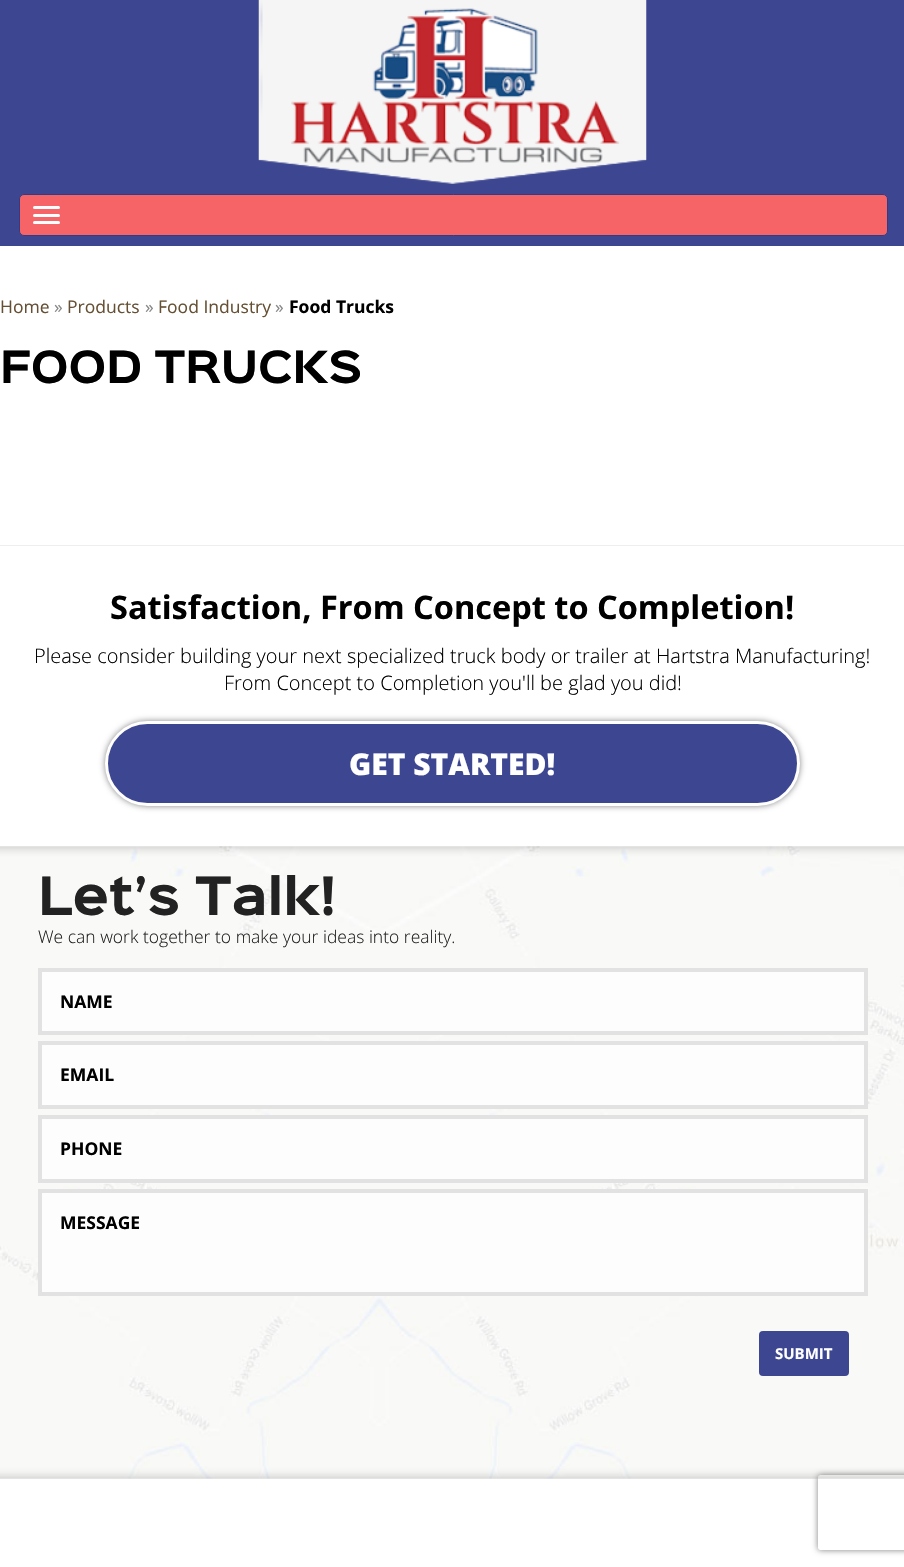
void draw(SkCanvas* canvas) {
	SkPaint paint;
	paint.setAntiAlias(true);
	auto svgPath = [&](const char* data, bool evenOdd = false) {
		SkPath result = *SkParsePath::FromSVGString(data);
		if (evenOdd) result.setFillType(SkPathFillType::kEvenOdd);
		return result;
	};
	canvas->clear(0xffffffff);
	paint.setColor(0xff3d4691);
	canvas->drawRect(SkRect::MakeXYWH(0, 0, 904, 246), paint);
	canvas->drawImageRect(SkImages::DeferredFromEncodedData(SkData::MakeFromFileName("img1.png")), SkRect::MakeXYWH(258, 0, 389, 184), SkSamplingOptions());
	paint.setColor(0xfff76468);
	canvas->drawRoundRect(SkRect::MakeXYWH(19.5, 194.5, 868, 41), 4.5, 4.5, paint);
	paint.setStroke(true);
	paint.setStrokeWidth(1);
	paint.setColor(0xff333b81);
	canvas->drawRoundRect(SkRect::MakeXYWH(19.5, 194.5, 868, 41), 4.5, 4.5, paint);
	paint.setStroke(false);
	paint.setColor(0xffffffff);
	canvas->drawRoundRect(SkRect::MakeXYWH(33, 206, 27, 3), 1.5, 1.5, paint);
	canvas->drawRoundRect(SkRect::MakeXYWH(33, 214, 27, 3), 1.5, 1.5, paint);
	canvas->drawRoundRect(SkRect::MakeXYWH(33, 221, 27, 3), 1.5, 1.5, paint);
	SkFont f1(fontMgr->matchFamilyStyle("Open Sans", SkFontStyle::Normal()), 17.5);
	f1.setSubpixel(true);
	paint.setColor(0xff665034);
	canvas->drawString("Home", 0, 313, f1, paint);
	paint.setColor(0xff888888);
	canvas->drawString("»", 54, 313, f1, paint);
	paint.setColor(0xff665034);
	canvas->drawString("Products", 67, 313, f1, paint);
	paint.setColor(0xff888888);
	canvas->drawString("»", 145, 313, f1, paint);
	paint.setColor(0xff665034);
	canvas->drawString("Food Industry", 158, 313, f1, paint);
	paint.setColor(0xff888888);
	canvas->drawString("»", 275, 313, f1, paint);
	SkFont f2(fontMgr->matchFamilyStyle("Open Sans", SkFontStyle::Bold()), 17.5);
	f2.setSubpixel(true);
	paint.setColor(0xff000000);
	canvas->drawString("Food Trucks", 289, 313, f2, paint);
	SkFont f3(fontMgr->matchFamilyStyle("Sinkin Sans", SkFontStyle::Bold()), 40);
	f3.setSubpixel(true);
	canvas->drawString("FOOD TRUCKS", 0, 383, f3, paint);
	paint.setColor(0xffeeeeee);
	canvas->drawRect(SkRect::MakeXYWH(0, 545, 904, 1), paint);
	SkFont f4(fontMgr->matchFamilyStyle("Open Sans", SkFontStyle::Bold()), 32.5);
	f4.setSubpixel(true);
	paint.setColor(0xff000000);
	canvas->drawString("Satisfaction, From Concept to Completion!", 110, 619, f4, paint);
	SkFont f5(fontMgr->matchFamilyStyle("Open Sans", SkFontStyle(300, SkFontStyle::kNormal_Width, SkFontStyle::kUpright_Slant)), 20);
	f5.setSubpixel(true);
	canvas->drawString("Please consider building your next specialized truck body or trailer at Hartstra Manufacturing!", 34, 663, f5, paint);
	canvas->drawString("From Concept to Completion you'll be glad you did!", 224, 690, f5, paint);
	paint.setColor(0xff888888);
	paint.setMaskFilter(SkMaskFilter::MakeBlur(kNormal_SkBlurStyle, 3));
	canvas->drawRoundRect(SkRect::MakeXYWH(105, 721, 695, 85), 42.5, 42.5, paint);
	paint.setMaskFilter(nullptr);
	paint.setColor(0xff3d4691);
	canvas->drawRoundRect(SkRect::MakeXYWH(106.5, 722.5, 692, 82), 41, 41, paint);
	paint.setStroke(true);
	paint.setStrokeWidth(3);
	paint.setColor(0xffffffff);
	canvas->drawRoundRect(SkRect::MakeXYWH(106.5, 722.5, 692, 82), 41, 41, paint);
	SkFont f6(fontMgr->matchFamilyStyle("Open Sans", SkFontStyle(800, SkFontStyle::kNormal_Width, SkFontStyle::kUpright_Slant)), 30);
	f6.setSubpixel(true);
	paint.setStroke(false);
	canvas->drawString("GET STARTED!", 349, 775, f6, paint);
	canvas->drawImageRect(SkImages::DeferredFromEncodedData(SkData::MakeFromFileName("img2.png")), SkRect::MakeXYWH(0, 846, 904, 633), SkSamplingOptions());
	SkFont f7(fontMgr->matchFamilyStyle("Sinkin Sans", SkFontStyle::Bold()), 47.5);
	f7.setSubpixel(true);
	paint.setColor(0xff222222);
	canvas->drawString("Let’s Talk!", 38, 915, f7, paint);
	SkFont f8(fontMgr->matchFamilyStyle("Open Sans", SkFontStyle(300, SkFontStyle::kNormal_Width, SkFontStyle::kUpright_Slant)), 17.5);
	f8.setSubpixel(true);
	canvas->drawString("We can work together to make your ideas into reality.", 38, 943, f8, paint);
	paint.setColor(0xfffdfdfd);
	canvas->drawRect(SkRect::MakeXYWH(40, 970, 826, 63), paint);
	paint.setStroke(true);
	paint.setStrokeWidth(4);
	paint.setColor(0xffe2e2e2);
	canvas->drawRect(SkRect::MakeXYWH(40, 970, 826, 63), paint);
	paint.setStroke(false);
	paint.setColor(0xff000000);
	canvas->drawString("NAME", 60, 1008, f2, paint);
	paint.setColor(0xfffdfdfd);
	canvas->drawRect(SkRect::MakeXYWH(40, 1043, 826, 64), paint);
	paint.setStroke(true);
	paint.setColor(0xffe2e2e2);
	canvas->drawRect(SkRect::MakeXYWH(40, 1043, 826, 64), paint);
	paint.setStroke(false);
	paint.setColor(0xff000000);
	canvas->drawString("EMAIL", 60, 1081, f2, paint);
	paint.setColor(0xfffdfdfd);
	canvas->drawRect(SkRect::MakeXYWH(40, 1117, 826, 64), paint);
	paint.setStroke(true);
	paint.setColor(0xffe2e2e2);
	canvas->drawRect(SkRect::MakeXYWH(40, 1117, 826, 64), paint);
	paint.setStroke(false);
	paint.setColor(0xff000000);
	canvas->drawString("PHONE", 60, 1155, f2, paint);
	paint.setColor(0xfffdfdfd);
	canvas->drawRect(SkRect::MakeXYWH(40, 1191, 826, 103), paint);
	paint.setStroke(true);
	paint.setColor(0xffe2e2e2);
	canvas->drawRect(SkRect::MakeXYWH(40, 1191, 826, 103), paint);
	paint.setStroke(false);
	paint.setColor(0xff000000);
	canvas->drawString("MESSAGE", 60, 1229, f2, paint);
	paint.setColor(0xff3d4691);
	canvas->drawRoundRect(SkRect::MakeXYWH(759, 1331, 90, 45), 4, 4, paint);
	SkFont f9(fontMgr->matchFamilyStyle("Open Sans", SkFontStyle::Bold()), 15);
	f9.setSubpixel(true);
	paint.setColor(0xffffffff);
	canvas->drawString("SUBMIT", 775, 1359, f9, paint);
	canvas->save();
	canvas->clipPath(svgPath("M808 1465H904V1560H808ZM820.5 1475H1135.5C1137 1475 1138 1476 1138 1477.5V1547.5C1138 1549 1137 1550 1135.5 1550H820.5C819 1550 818 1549 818 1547.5V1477.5C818 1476 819 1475 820.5 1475Z", true), true);
	paint.setColor(0xff808080);
	paint.setMaskFilter(SkMaskFilter::MakeBlur(kNormal_SkBlurStyle, 3));
	canvas->drawRoundRect(SkRect::MakeXYWH(818, 1475, 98, 75), 2.5, 2.5, paint);
	paint.setMaskFilter(nullptr);
	canvas->restore();
}
